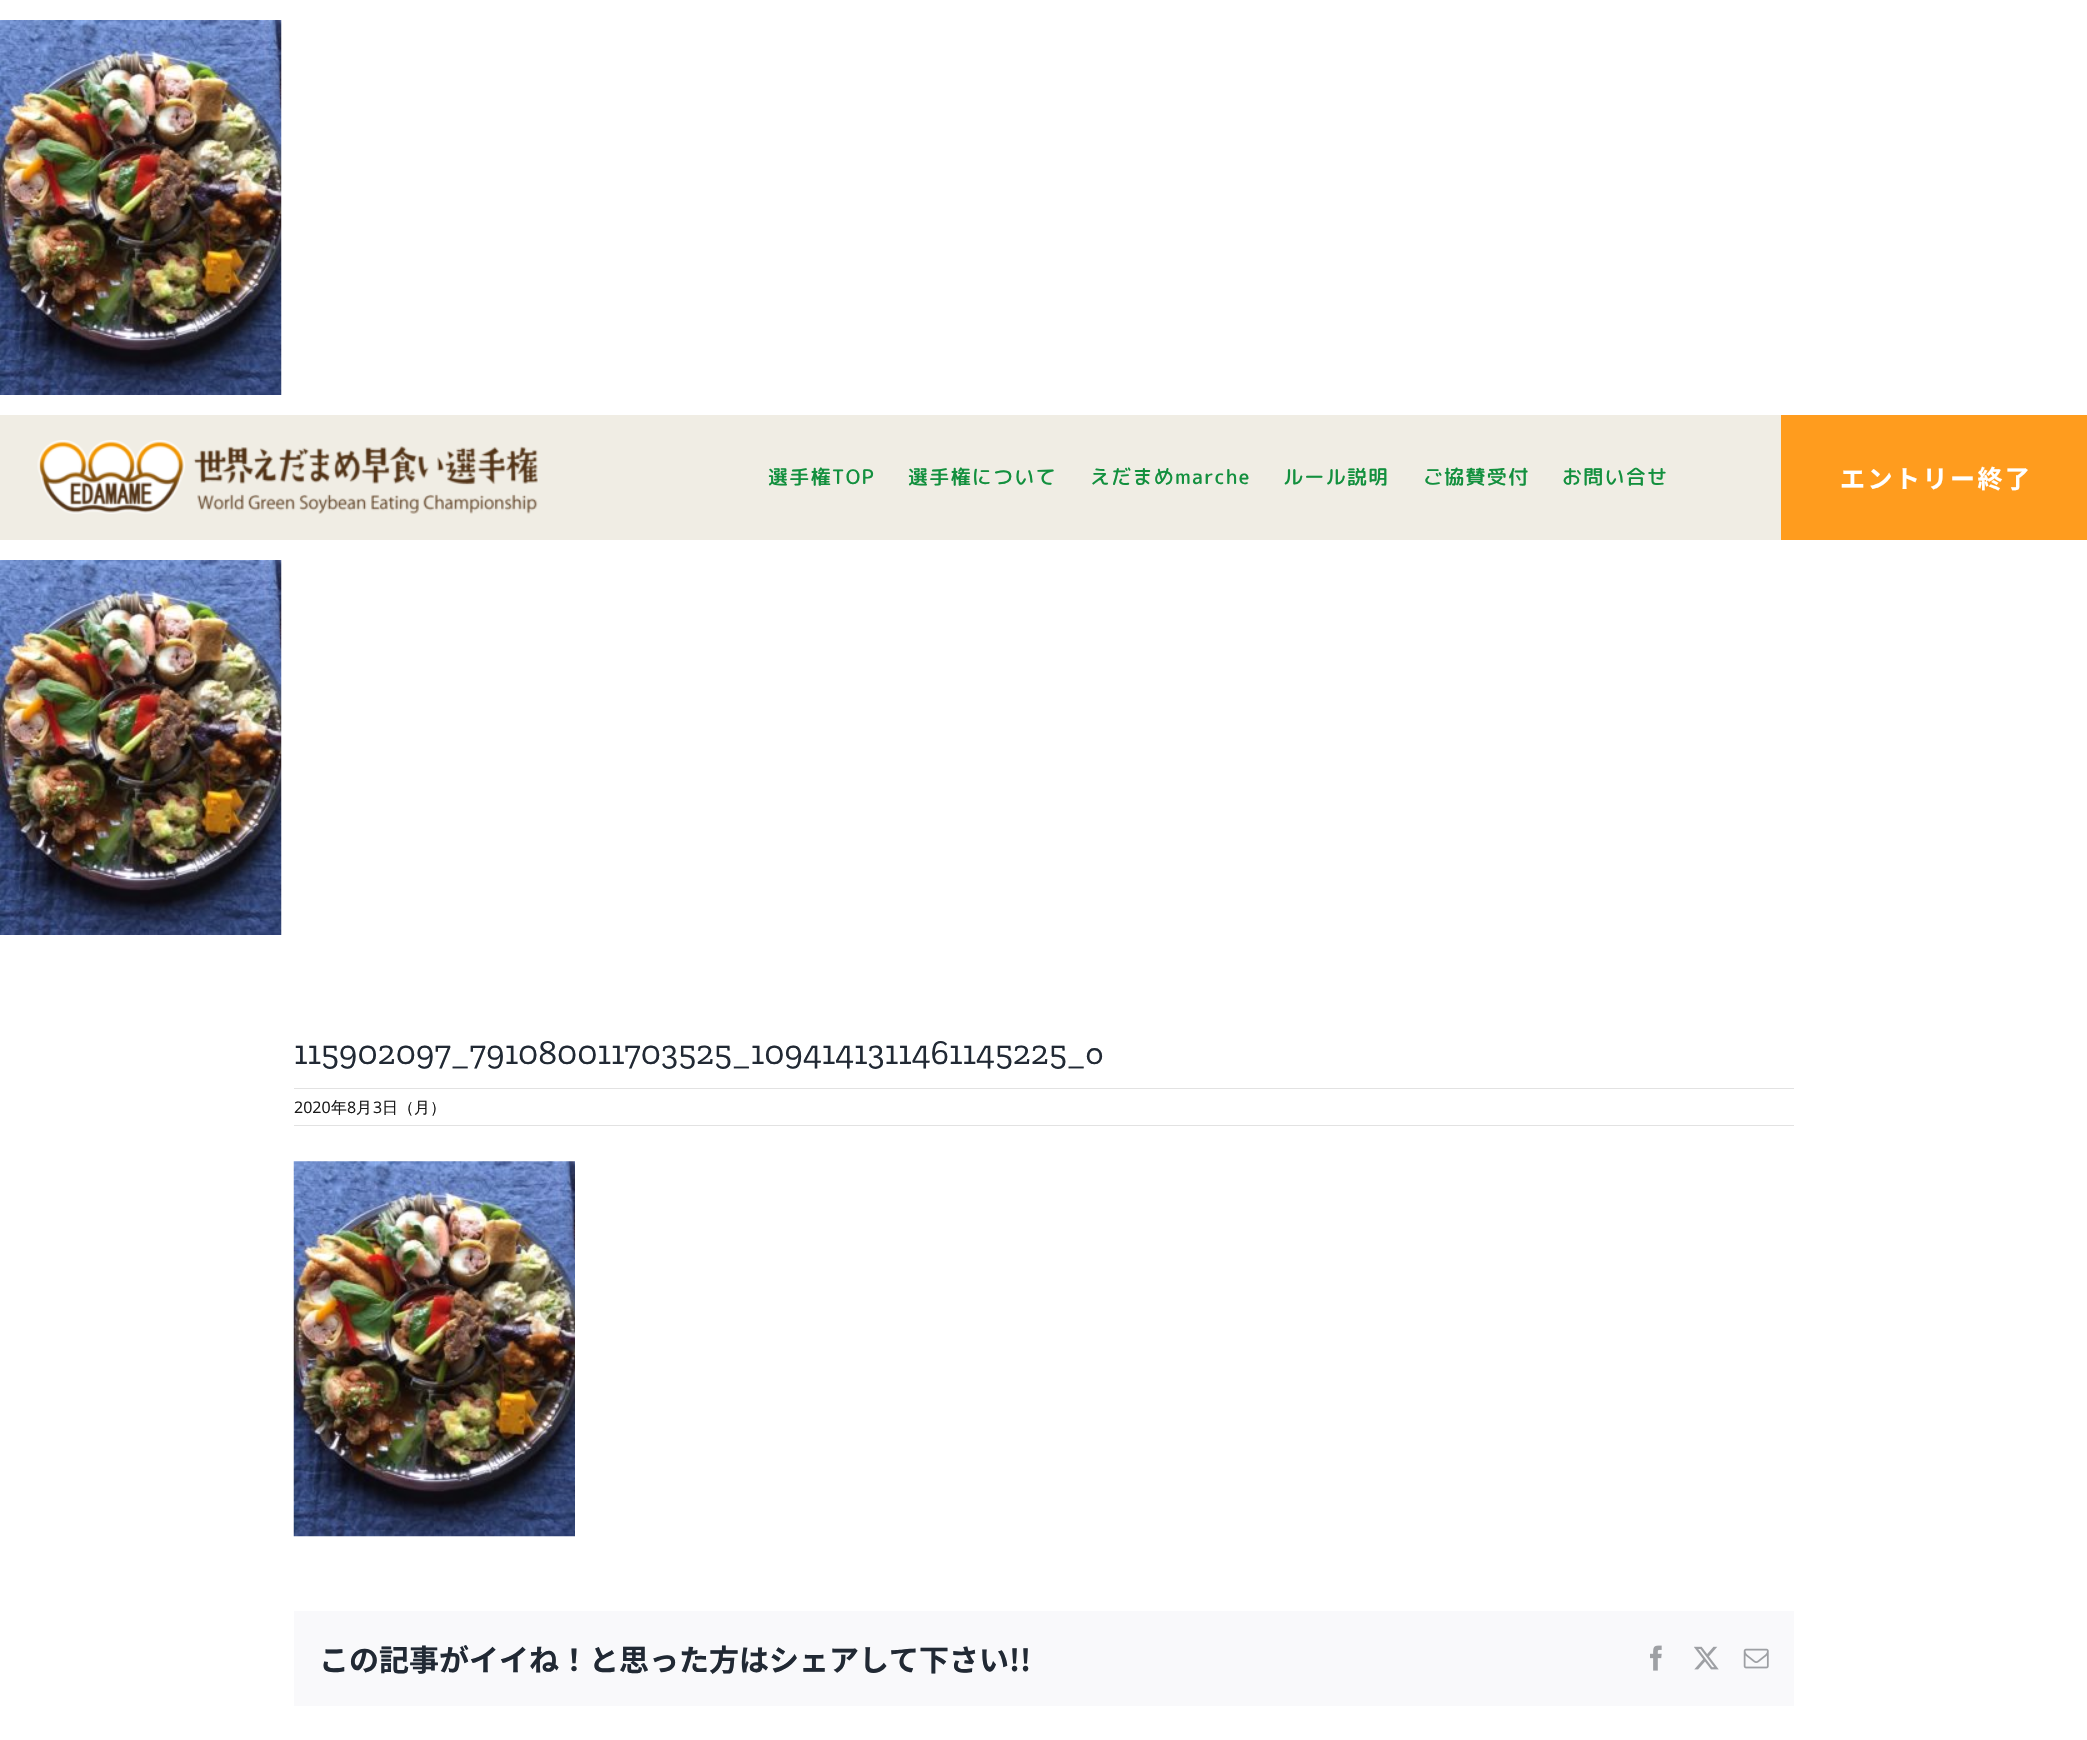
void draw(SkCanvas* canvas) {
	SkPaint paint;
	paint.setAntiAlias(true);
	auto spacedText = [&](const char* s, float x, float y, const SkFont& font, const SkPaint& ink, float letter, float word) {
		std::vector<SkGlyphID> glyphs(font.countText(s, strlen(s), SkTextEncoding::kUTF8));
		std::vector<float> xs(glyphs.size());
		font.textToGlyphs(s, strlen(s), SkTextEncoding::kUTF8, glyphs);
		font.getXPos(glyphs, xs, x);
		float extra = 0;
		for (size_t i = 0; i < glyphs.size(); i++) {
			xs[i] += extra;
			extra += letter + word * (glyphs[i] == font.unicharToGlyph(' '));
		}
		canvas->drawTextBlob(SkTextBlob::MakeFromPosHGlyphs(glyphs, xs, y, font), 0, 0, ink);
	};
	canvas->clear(0xffffffff);
	canvas->drawImageRect(SkImages::DeferredFromEncodedData(SkData::MakeFromFileName("img1.png")), SkRect::MakeXYWH(0, 20, 282, 375), SkSamplingOptions());
	paint.setColor(0xfff0ede4);
	canvas->drawRect(SkRect::MakeXYWH(0, 415, 1781, 125), paint);
	canvas->drawImageRect(SkImages::DeferredFromEncodedData(SkData::MakeFromFileName("img2.png")), SkRect::MakeXYWH(37, 440, 501, 74), SkSamplingOptions());
	SkFont f1(fontMgr->matchFamilyStyle("Rounded Mplus 1c", SkFontStyle(500, SkFontStyle::kNormal_Width, SkFontStyle::kUpright_Slant)), 20);
	f1.setSubpixel(true);
	paint.setColor(0xff13903e);
	spacedText("選手権TOP", 768, 484, f1, paint, 1.25, 0);
	spacedText("選手権について", 908, 484, f1, paint, 1.25, 0);
	spacedText("えだまめmarche", 1090, 484, f1, paint, 1.25, 0);
	spacedText("ルール説明", 1283, 484, f1, paint, 1.25, 0);
	spacedText("ご協賛受付", 1423, 484, f1, paint, 1.25, 0);
	spacedText("お問い合せ", 1562, 484, f1, paint, 1.25, 0);
	paint.setColor(0xffff9c1e);
	canvas->drawRect(SkRect::MakeXYWH(1781, 415, 306, 125), paint);
	SkFont f2(fontMgr->matchFamilyStyle("Noto Sans JP", SkFontStyle::Bold()), 25);
	f2.setSubpixel(true);
	paint.setColor(0xffffffff);
	spacedText("エントリー終了", 1840, 488, f2, paint, 2.5, 0);
	canvas->drawImageRect(SkImages::DeferredFromEncodedData(SkData::MakeFromFileName("img3.png")), SkRect::MakeXYWH(0, 560, 282, 375), SkSamplingOptions());
	SkFont f3(fontMgr->matchFamilyStyle("Zilla Slab", SkFontStyle::Normal()), 35);
	f3.setSubpixel(true);
	paint.setColor(0xff212934);
	canvas->drawString("115902097_791080011703525_1094141311461145225_o", 294, 1064, f3, paint);
	paint.setColor(0xffe2e2e2);
	canvas->drawRect(SkRect::MakeXYWH(294, 1088, 1500, 1), paint);
	canvas->drawRect(SkRect::MakeXYWH(294, 1125, 1500, 1), paint);
	SkFont f4(fontMgr->matchFamilyStyle("Open Sans", SkFontStyle::Normal()), 16);
	f4.setSubpixel(true);
	paint.setColor(0xff1a1a1a);
	canvas->drawString("2020", 294, 1113, f4, paint);
	SkFont f5(fontMgr->matchFamilyStyle("WenQuanYi Zen Hei", SkFontStyle(500, SkFontStyle::kNormal_Width, SkFontStyle::kUpright_Slant)), 16);
	f5.setSubpixel(true);
	canvas->drawString("年", 331, 1113, f5, paint);
	canvas->drawString("8", 347, 1113, f4, paint);
	canvas->drawString("月", 356, 1113, f5, paint);
	canvas->drawString("3", 373, 1113, f4, paint);
	canvas->drawString("日（月）", 382, 1113, f5, paint);
	canvas->drawImageRect(SkImages::DeferredFromEncodedData(SkData::MakeFromFileName("img4.png")), SkRect::MakeXYWH(293, 1161, 282, 376), SkSamplingOptions());
	paint.setColor(0xfff9f9fb);
	canvas->drawRect(SkRect::MakeXYWH(294, 1611, 1500, 95), paint);
	SkFont f6(fontMgr->matchFamilyStyle("Noto Sans JP", SkFontStyle::Bold()), 30);
	f6.setSubpixel(true);
	paint.setColor(0xff212934);
	canvas->drawString("この記事がイイね！と思った方はシェアして下さい!!", 319, 1671, f6, paint);
	canvas->drawImageRect(SkImages::DeferredFromEncodedData(SkData::MakeFromFileName("img5.png")), SkRect::MakeXYWH(1650, 1645, 12, 26), SkSamplingOptions());
	canvas->drawImageRect(SkImages::DeferredFromEncodedData(SkData::MakeFromFileName("img6.png")), SkRect::MakeXYWH(1694, 1646, 25, 24), SkSamplingOptions());
	canvas->drawImageRect(SkImages::DeferredFromEncodedData(SkData::MakeFromFileName("img7.png")), SkRect::MakeXYWH(1743, 1648, 26, 21), SkSamplingOptions());
}
